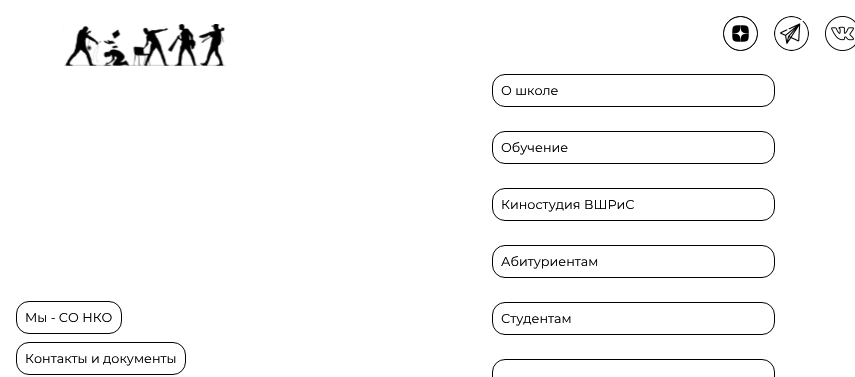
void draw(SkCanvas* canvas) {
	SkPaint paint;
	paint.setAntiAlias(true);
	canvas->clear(0xffffffff);
	canvas->drawImageRect(SkImages::DeferredFromEncodedData(SkData::MakeFromFileName("img1.png")), SkRect::MakeXYWH(63, 24, 163, 42), SkSamplingOptions());
	paint.setColor(0xff000000);
	canvas->drawCircle(740.5, 33.5, 17, paint);
	paint.setStroke(true);
	paint.setStrokeWidth(1);
	canvas->drawCircle(740.5, 33.5, 17, paint);
	canvas->drawImageRect(SkImages::DeferredFromEncodedData(SkData::MakeFromFileName("img2.png")), SkRect::MakeXYWH(724, 17, 33, 33), SkSamplingOptions());
	canvas->drawImageRect(SkImages::DeferredFromEncodedData(SkData::MakeFromFileName("img3.png")), SkRect::MakeXYWH(774, 16, 35, 35), SkSamplingOptions());
	canvas->drawImageRect(SkImages::DeferredFromEncodedData(SkData::MakeFromFileName("img4.png")), SkRect::MakeXYWH(825, 16, 30, 35), SkSamplingOptions());
	canvas->drawRoundRect(SkRect::MakeXYWH(492.5, 74.5, 282, 32), 12.5, 12.5, paint);
	SkFont f1(fontMgr->matchFamilyStyle("Montserrat", SkFontStyle::Normal()), 12.75);
	f1.setSubpixel(true);
	paint.setStroke(false);
	canvas->drawString("О школе", 501, 95, f1, paint);
	paint.setStroke(true);
	canvas->drawRoundRect(SkRect::MakeXYWH(492.5, 131.5, 282, 32), 12.5, 12.5, paint);
	paint.setStroke(false);
	canvas->drawString("Обучение", 501, 152, f1, paint);
	paint.setStroke(true);
	canvas->drawRoundRect(SkRect::MakeXYWH(492.5, 188.5, 282, 32), 12.5, 12.5, paint);
	paint.setStroke(false);
	canvas->drawString("Киностудия ВШРиС", 501, 209, f1, paint);
	paint.setStroke(true);
	canvas->drawRoundRect(SkRect::MakeXYWH(492.5, 245.5, 282, 32), 12.5, 12.5, paint);
	paint.setStroke(false);
	canvas->drawString("Абитуриентам", 501, 266, f1, paint);
	paint.setStroke(true);
	canvas->drawRoundRect(SkRect::MakeXYWH(492.5, 302.5, 282, 32), 12.5, 12.5, paint);
	paint.setStroke(false);
	canvas->drawString("Студентам", 501, 323, f1, paint);
	paint.setStroke(true);
	canvas->drawRoundRect(SkRect::MakeXYWH(492.5, 359.5, 282, 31), 12.5, 12.5, paint);
	canvas->drawRoundRect(SkRect::MakeXYWH(16.5, 301.5, 105, 32), 12.5, 12.5, paint);
	paint.setStroke(false);
	canvas->drawString("Мы - СО НКО", 25, 322, f1, paint);
	paint.setStroke(true);
	canvas->drawRoundRect(SkRect::MakeXYWH(16.5, 342.5, 169, 32), 12.5, 12.5, paint);
	paint.setStroke(false);
	canvas->drawString("Контакты и документы", 25, 363, f1, paint);
}
